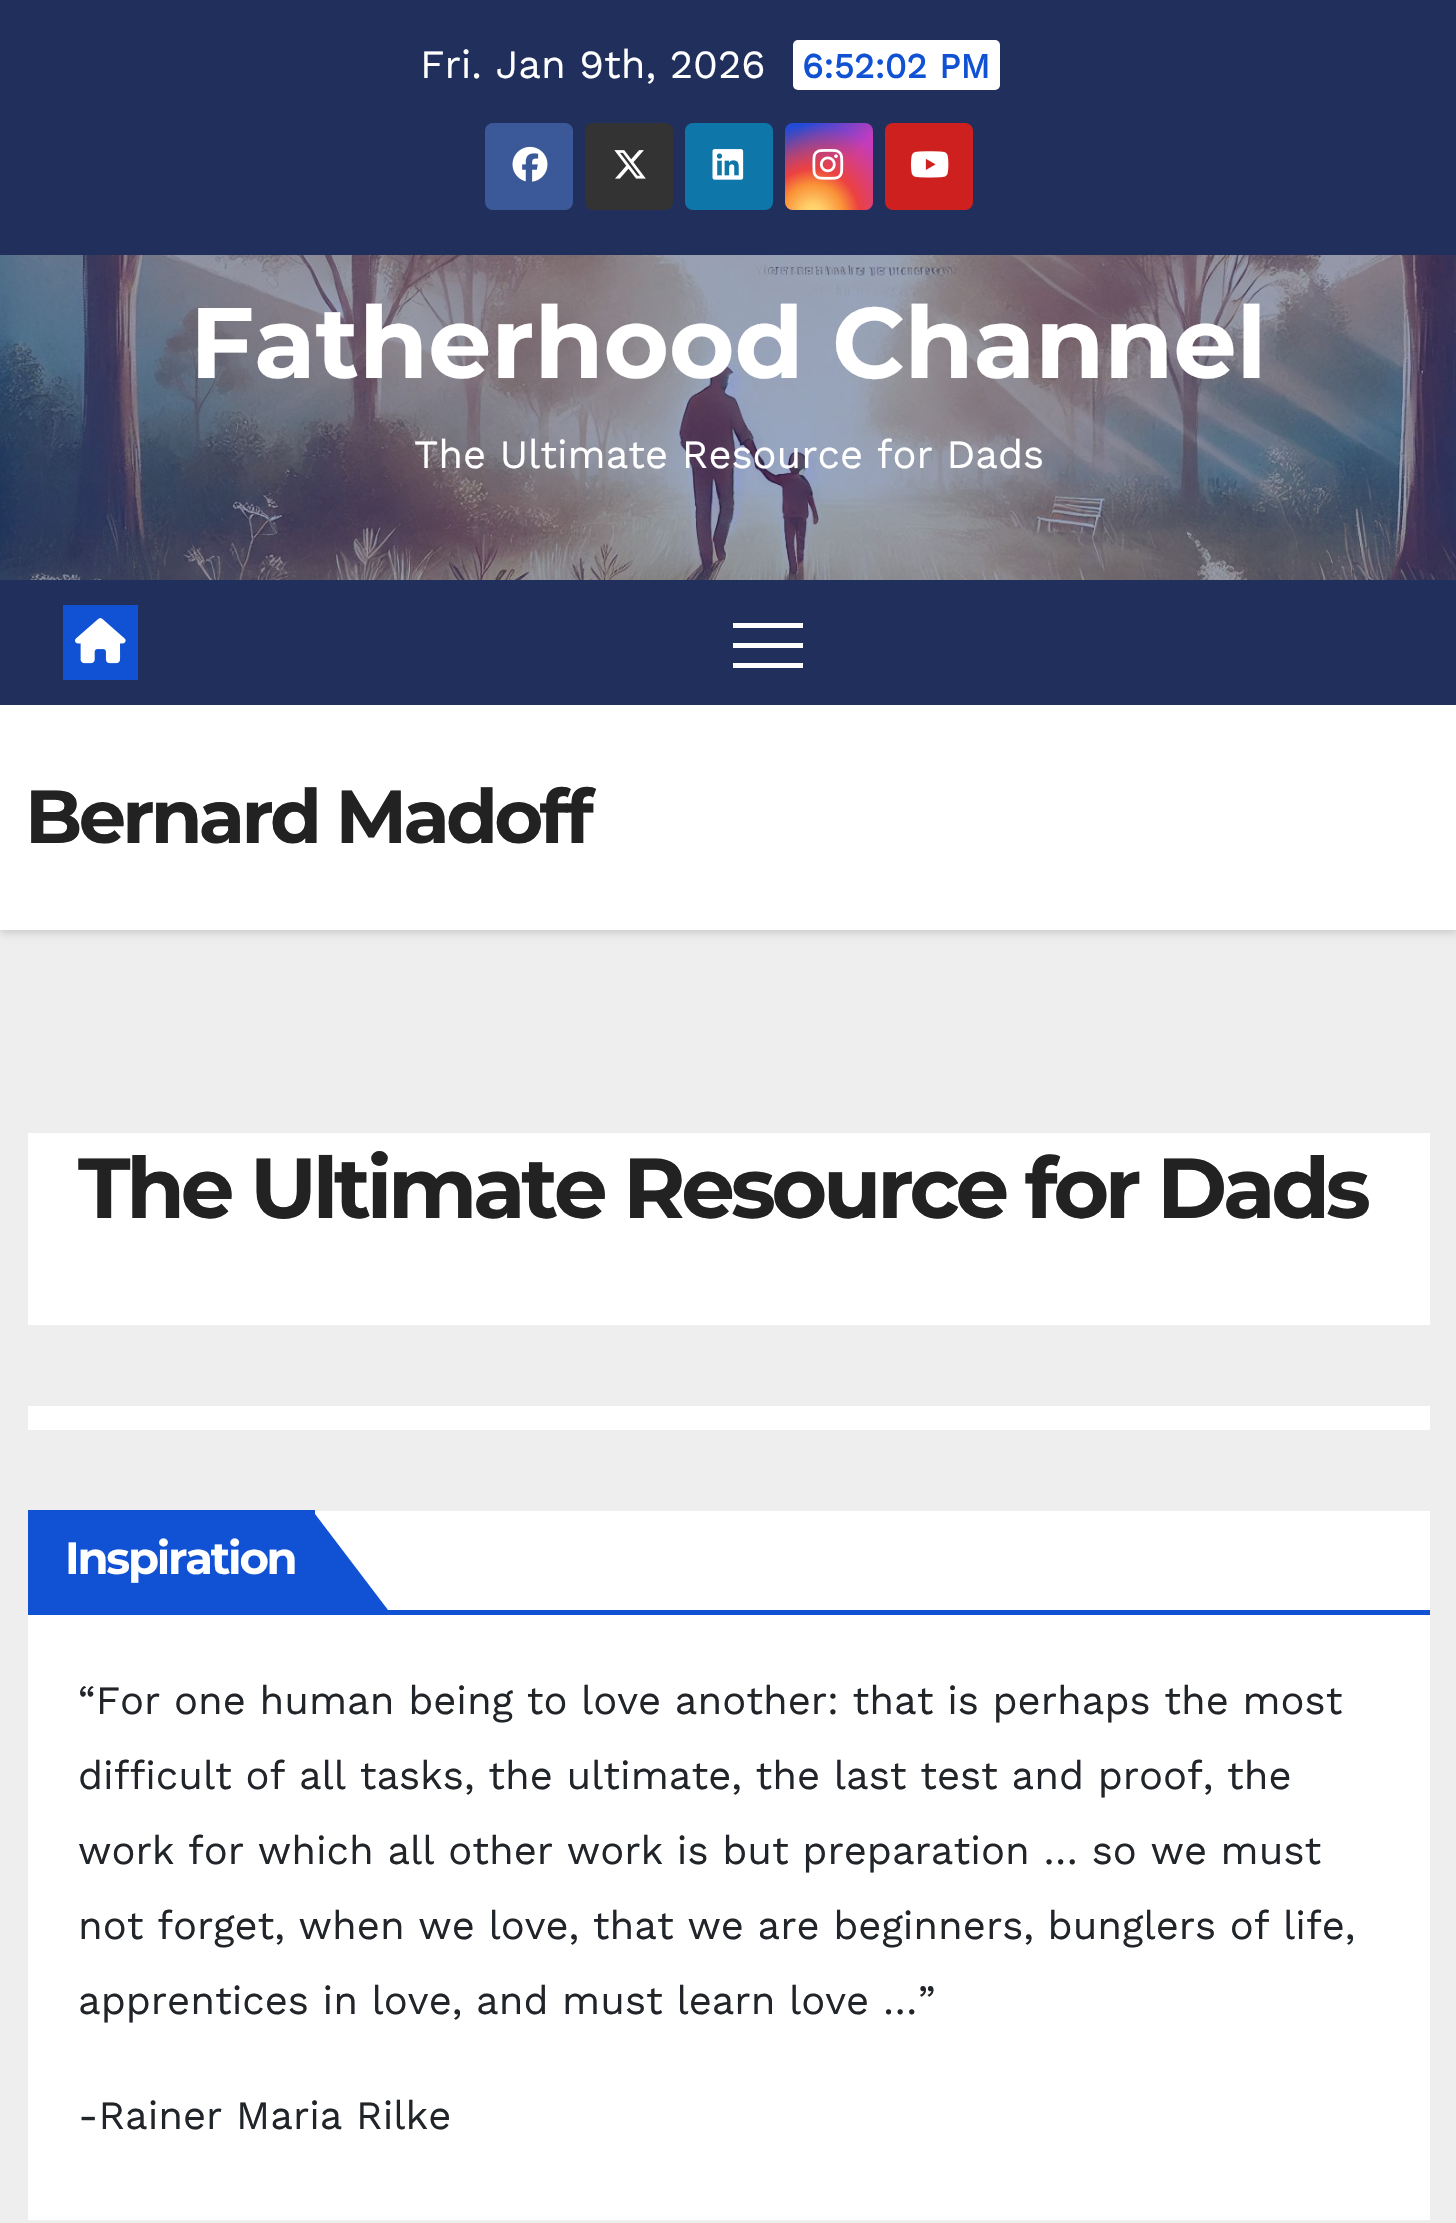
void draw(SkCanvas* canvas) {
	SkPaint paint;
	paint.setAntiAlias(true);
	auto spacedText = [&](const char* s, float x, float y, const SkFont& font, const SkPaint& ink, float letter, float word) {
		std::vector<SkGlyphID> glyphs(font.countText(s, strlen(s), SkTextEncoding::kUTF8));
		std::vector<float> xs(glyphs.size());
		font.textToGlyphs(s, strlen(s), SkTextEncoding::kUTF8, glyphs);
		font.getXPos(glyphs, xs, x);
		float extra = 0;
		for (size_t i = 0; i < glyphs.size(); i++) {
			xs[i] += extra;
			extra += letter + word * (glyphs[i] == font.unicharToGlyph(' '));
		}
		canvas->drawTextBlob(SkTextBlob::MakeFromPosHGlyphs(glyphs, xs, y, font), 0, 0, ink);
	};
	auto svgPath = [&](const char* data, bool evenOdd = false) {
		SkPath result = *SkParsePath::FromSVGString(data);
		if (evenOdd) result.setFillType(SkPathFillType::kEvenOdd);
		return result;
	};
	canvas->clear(0xffeeeeee);
	paint.setColor(0xff202f5b);
	canvas->drawRect(SkRect::MakeXYWH(0, 0, 1456, 255), paint);
	SkFont f1(fontMgr->matchFamilyStyle("Work Sans", SkFontStyle::Normal()), 40);
	f1.setSubpixel(true);
	paint.setColor(0xffffffff);
	canvas->drawString("Fri. Jan 9th, 2026", 420, 78, f1, paint);
	canvas->drawRoundRect(SkRect::MakeXYWH(793, 40, 207, 50), 5, 5, paint);
	SkFont f2(fontMgr->matchFamilyStyle("Work Sans", SkFontStyle::Bold()), 35);
	f2.setSubpixel(true);
	paint.setColor(0xff1151d3);
	canvas->drawString("6:52:02 PM", 802, 78, f2, paint);
	paint.setColor(0xff3b5998);
	canvas->drawRoundRect(SkRect::MakeXYWH(485, 123, 88, 87), 8, 8, paint);
	canvas->drawImageRect(SkImages::DeferredFromEncodedData(SkData::MakeFromFileName("img1.png")), SkRect::MakeXYWH(512, 146, 36, 36), SkSamplingOptions());
	paint.setColor(0xff333333);
	canvas->drawRoundRect(SkRect::MakeXYWH(585, 123, 88, 87), 8, 8, paint);
	canvas->drawImageRect(SkImages::DeferredFromEncodedData(SkData::MakeFromFileName("img2.png")), SkRect::MakeXYWH(614, 150, 32, 29), SkSamplingOptions());
	paint.setColor(0xff0e76a8);
	canvas->drawRoundRect(SkRect::MakeXYWH(685, 123, 88, 87), 8, 8, paint);
	canvas->drawImageRect(SkImages::DeferredFromEncodedData(SkData::MakeFromFileName("img3.png")), SkRect::MakeXYWH(712, 149, 32, 31), SkSamplingOptions());
	{
		const SkColor colors[] = {0xff234bd7, 0xffc33cbe};
		const float stops[] = {0.12, 0.58};
		const SkPoint ends[] = {{785, 123}, {873, 210}};
		paint.setShader(SkGradientShader::MakeLinear(ends, colors, stops, 2, SkTileMode::kClamp));
		paint.setAlpha(255);
	}
	canvas->drawRoundRect(SkRect::MakeXYWH(785, 123, 88, 87), 8, 8, paint);
	{
		const SkColor colors[] = {0xffffe17d, 0xffffcd69, 0xfffa9137, 0xffeb4141, 0x00eb4141};
		const float stops[] = {0, 0.1, 0.28, 0.42, 0.82};
		paint.setShader(SkGradientShader::MakeRadial({813, 215}, 110, colors, stops, 5, SkTileMode::kClamp));
		paint.setAlpha(255);
	}
	canvas->drawRoundRect(SkRect::MakeXYWH(785, 123, 88, 87), 8, 8, paint);
	canvas->drawImageRect(SkImages::DeferredFromEncodedData(SkData::MakeFromFileName("img4.png")), SkRect::MakeXYWH(812, 149, 32, 31), SkSamplingOptions());
	paint.setShader(nullptr);
	paint.setColor(0xffcd201f);
	canvas->drawRoundRect(SkRect::MakeXYWH(885, 123, 88, 87), 8, 8, paint);
	canvas->drawImageRect(SkImages::DeferredFromEncodedData(SkData::MakeFromFileName("img5.png")), SkRect::MakeXYWH(911, 151, 38, 27), SkSamplingOptions());
	canvas->drawImageRect(SkImages::DeferredFromEncodedData(SkData::MakeFromFileName("img6.png")), SkRect::MakeXYWH(0, 255, 1456, 325), SkSamplingOptions());
	SkFont f3(fontMgr->matchFamilyStyle("Montserrat", SkFontStyle::Bold()), 100);
	f3.setSubpixel(true);
	paint.setColor(0xffffffff);
	canvas->drawString("Fatherhood Channel", 190, 378, f3, paint);
	canvas->drawString("The Ultimate Resource for Dads", 414, 468, f1, paint);
	paint.setColor(0x26000000);
	paint.setMaskFilter(SkMaskFilter::MakeBlur(kNormal_SkBlurStyle, 4));
	canvas->drawRect(SkRect::MakeXYWH(0, 708, 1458, 225), paint);
	paint.setMaskFilter(nullptr);
	paint.setColor(0xff202f5b);
	canvas->drawRect(SkRect::MakeXYWH(0, 580, 1456, 125), paint);
	paint.setColor(0xff1151d3);
	canvas->drawRect(SkRect::MakeXYWH(63, 605, 75, 75), paint);
	canvas->drawImageRect(SkImages::DeferredFromEncodedData(SkData::MakeFromFileName("img7.png")), SkRect::MakeXYWH(75, 618, 51, 46), SkSamplingOptions());
	paint.setColor(0xffffffff);
	canvas->drawRect(SkRect::MakeXYWH(733, 623, 70, 5), paint);
	canvas->drawRect(SkRect::MakeXYWH(733, 643, 70, 5), paint);
	canvas->drawRect(SkRect::MakeXYWH(733, 663, 70, 5), paint);
	canvas->drawRect(SkRect::MakeXYWH(0, 705, 1456, 225), paint);
	SkFont f4(fontMgr->matchFamilyStyle("Montserrat", SkFontStyle::Bold()), 75);
	f4.setSubpixel(true);
	paint.setColor(0xff222222);
	spacedText("Bernard Madoff", 25, 843, f4, paint, -3.75, 0);
	paint.setColor(0xffffffff);
	canvas->drawRect(SkRect::MakeXYWH(28, 1133, 1402, 192), paint);
	SkFont f5(fontMgr->matchFamilyStyle("Montserrat", SkFontStyle::Bold()), 85);
	f5.setSubpixel(true);
	paint.setColor(0xff222222);
	spacedText("The Ultimate Resource for Dads", 78, 1218, f5, paint, -4.25, 0);
	paint.setColor(0xffffffff);
	canvas->drawRect(SkRect::MakeXYWH(28, 1406, 1402, 24), paint);
	canvas->drawRect(SkRect::MakeXYWH(28, 1511, 1402, 709), paint);
	paint.setColor(0xff1151d3);
	canvas->drawRect(SkRect::MakeXYWH(28, 1610, 1402, 5), paint);
	canvas->drawRect(SkRect::MakeXYWH(28, 1510, 287, 100), paint);
	SkFont f6(fontMgr->matchFamilyStyle("Montserrat", SkFontStyle::Bold()), 45);
	f6.setSubpixel(true);
	paint.setColor(0xffffffff);
	spacedText("Inspiration", 65, 1574, f6, paint, -2.25, 0);
	paint.setColor(0xff1151d3);
	canvas->drawPath(svgPath("M312 1610V1510L388 1610Z"), paint);
	paint.setColor(0xff212529);
	canvas->drawString("“For one human being to love another: that is perhaps the most", 78, 1714, f1, paint);
	canvas->drawString("difficult of all tasks, the ultimate, the last test and proof, the", 78, 1789, f1, paint);
	canvas->drawString("work for which all other work is but preparation … so we must", 78, 1864, f1, paint);
	canvas->drawString("not forget, when we love, that we are beginners, bunglers of life,", 78, 1939, f1, paint);
	canvas->drawString("apprentices in love, and must learn love …”", 78, 2014, f1, paint);
	canvas->drawString("-Rainer Maria Rilke", 78, 2129, f1, paint);
}
